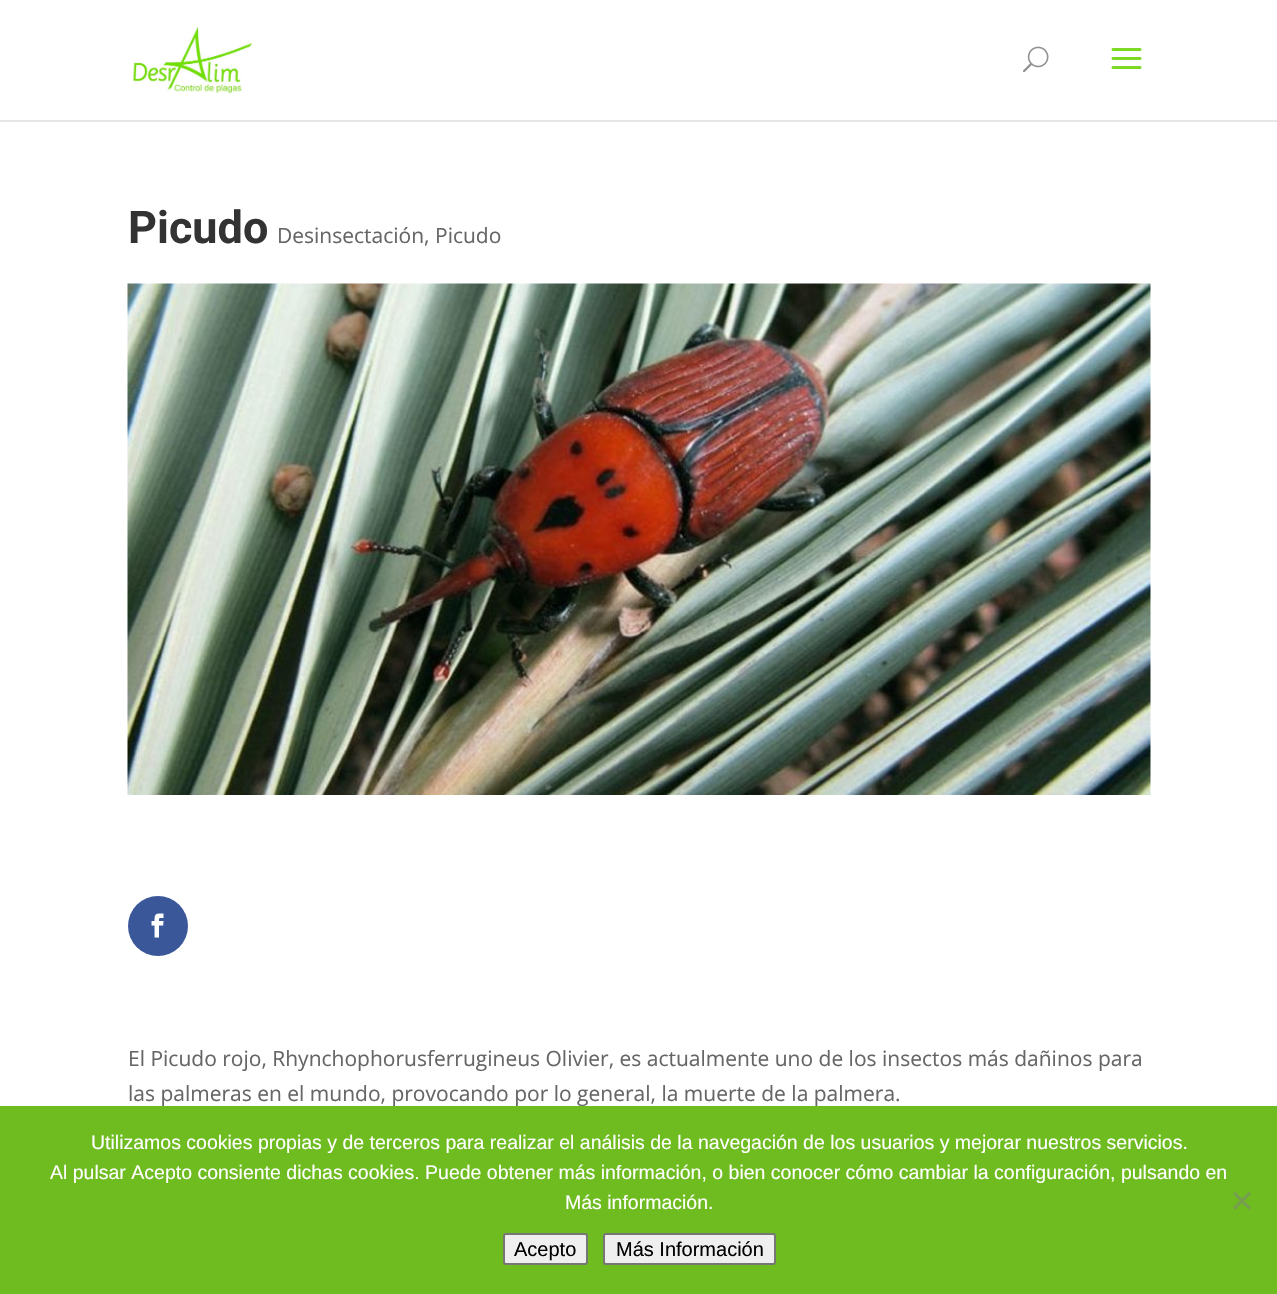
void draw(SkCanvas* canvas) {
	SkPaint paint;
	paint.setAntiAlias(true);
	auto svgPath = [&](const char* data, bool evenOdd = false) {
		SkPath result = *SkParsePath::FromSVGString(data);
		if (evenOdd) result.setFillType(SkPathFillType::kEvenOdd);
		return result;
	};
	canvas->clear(0xffffffff);
	paint.setColor(0xffe6e6e6);
	canvas->drawRect(SkRect::MakeXYWH(0, 120, 1277, 2), paint);
	canvas->drawImageRect(SkImages::DeferredFromEncodedData(SkData::MakeFromFileName("img1.png")), SkRect::MakeXYWH(133, 27, 119, 66), SkSamplingOptions());
	canvas->drawImageRect(SkImages::DeferredFromEncodedData(SkData::MakeFromFileName("img2.png")), SkRect::MakeXYWH(1023, 46, 26, 27), SkSamplingOptions());
	canvas->drawImageRect(SkImages::DeferredFromEncodedData(SkData::MakeFromFileName("img3.png")), SkRect::MakeXYWH(1111, 48, 31, 21), SkSamplingOptions());
	SkFont f1(fontMgr->matchFamilyStyle("Roboto", SkFontStyle::Bold()), 45);
	f1.setSubpixel(true);
	paint.setColor(0xff333333);
	canvas->drawString("Picudo", 128, 243, f1, paint);
	SkFont f2(fontMgr->matchFamilyStyle("Open Sans", SkFontStyle::Normal()), 21);
	f2.setSubpixel(true);
	paint.setColor(0xff666666);
	canvas->drawString("Desinsectación, Picudo", 277, 243, f2, paint);
	canvas->drawImageRect(SkImages::DeferredFromEncodedData(SkData::MakeFromFileName("img4.png")), SkRect::MakeXYWH(127, 283, 1024, 512), SkSamplingOptions());
	paint.setColor(0xff3a579a);
	canvas->drawCircle(158, 926, 30, paint);
	canvas->drawImageRect(SkImages::DeferredFromEncodedData(SkData::MakeFromFileName("img5.png")), SkRect::MakeXYWH(151, 913, 13, 25), SkSamplingOptions());
	paint.setColor(0xff666666);
	canvas->drawString("El Picudo rojo, Rhynchophorusferrugineus Olivier, es actualmente uno de los insectos más dañinos para", 128, 1066, f2, paint);
	canvas->drawString("las palmeras en el mundo, provocando por lo general, la muerte de la palmera.", 128, 1101, f2, paint);
	paint.setColor(0xff6ebc20);
	canvas->drawRect(SkRect::MakeXYWH(0, 1106, 1277, 188), paint);
	SkFont f3(fontMgr->matchFamilyStyle("Liberation Sans", SkFontStyle::Normal()), 19.5);
	f3.setSubpixel(true);
	paint.setColor(0xffffffff);
	canvas->drawString("Utilizamos cookies propias y de terceros para realizar el análisis de la navegación de los usuarios y mejorar nuestros servicios.", 91, 1149, f3, paint);
	canvas->drawString("Al pulsar Acepto consiente dichas cookies. Puede obtener más información, o bien conocer cómo cambiar la configuración, pulsando en", 50, 1179, f3, paint);
	canvas->drawString("Más información.", 565, 1209, f3, paint);
	paint.setColor(0xff779e50);
	canvas->drawPath(svgPath("M1249 1191.5L1251 1194L1235 1210L1233 1207.5Z"), paint);
	canvas->drawPath(svgPath("M1233 1194L1235 1191.5L1251 1207.5L1249 1210Z"), paint);
	paint.setColor(0xffefefef);
	canvas->drawRoundRect(SkRect::MakeXYWH(504, 1234, 83, 30), 2, 2, paint);
	paint.setStroke(true);
	paint.setStrokeWidth(2);
	paint.setColor(0xff767676);
	canvas->drawRoundRect(SkRect::MakeXYWH(504, 1234, 83, 30), 2, 2, paint);
	SkFont f4(fontMgr->matchFamilyStyle("Liberation Sans", SkFontStyle::Normal()), 20);
	f4.setSubpixel(true);
	paint.setStroke(false);
	paint.setColor(0xff000000);
	canvas->drawString("Acepto", 514, 1256, f4, paint);
	paint.setColor(0xffefefef);
	canvas->drawRoundRect(SkRect::MakeXYWH(604, 1234, 171, 30), 2, 2, paint);
	paint.setStroke(true);
	paint.setColor(0xff767676);
	canvas->drawRoundRect(SkRect::MakeXYWH(604, 1234, 171, 30), 2, 2, paint);
	paint.setStroke(false);
	paint.setColor(0xff000000);
	canvas->drawString("Más Información", 616, 1256, f4, paint);
}
